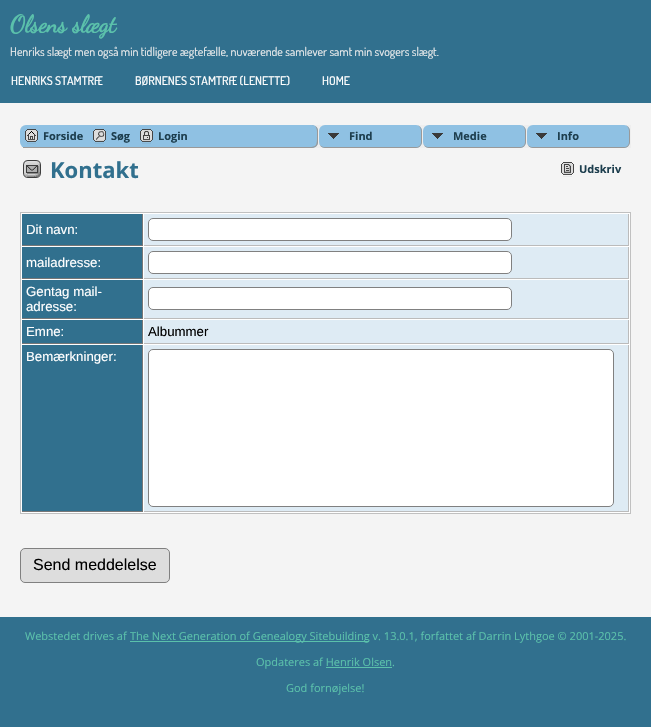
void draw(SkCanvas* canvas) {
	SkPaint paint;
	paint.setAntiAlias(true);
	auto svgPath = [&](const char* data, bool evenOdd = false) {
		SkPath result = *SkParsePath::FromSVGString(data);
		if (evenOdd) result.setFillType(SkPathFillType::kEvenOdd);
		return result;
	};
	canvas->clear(0xff31708e);
	SkFont f1(fontMgr->matchFamilyStyle("Dancing Script", SkFontStyle::Bold()), 24);
	f1.setSubpixel(true);
	paint.setColor(0xff5bc1ab);
	canvas->drawString("Olsens slægt", 10, 32, f1, paint);
	SkFont f2(fontMgr->matchFamilyStyle("Dosis", SkFontStyle::Normal()), 12);
	f2.setSubpixel(true);
	paint.setColor(0xffeeeeee);
	canvas->drawString("Henriks slægt men også min tidligere ægtefælle, nuværende samlever samt min svogers slægt.", 10, 56, f2, paint);
	SkFont f3(fontMgr->matchFamilyStyle("Dosis", SkFontStyle(500, SkFontStyle::kNormal_Width, SkFontStyle::kUpright_Slant)), 12);
	f3.setSubpixel(true);
	paint.setColor(0xffffffff);
	canvas->drawString("HENRIKS STAMTRÆ", 11, 85, f3, paint);
	canvas->drawString("BØRNENES STAMTRÆ (LENETTE)", 135, 85, f3, paint);
	canvas->drawString("HOME", 322, 85, f3, paint);
	paint.setColor(0xfff4f4f4);
	canvas->drawRect(SkRect::MakeXYWH(0, 103, 651, 514), paint);
	paint.setColor(0xff8fc1e3);
	canvas->drawRoundRect(SkRect::MakeXYWH(20, 125, 611, 23), 6, 6, paint);
	paint.setColor(0xff999999);
	canvas->drawRect(SkRect::MakeXYWH(23, 147, 284, 1), paint);
	canvas->drawImageRect(SkImages::DeferredFromEncodedData(SkData::MakeFromFileName("img1.png")), SkRect::MakeXYWH(25, 129, 13, 15), SkSamplingOptions());
	SkFont f4(fontMgr->matchFamilyStyle("Open Sans", SkFontStyle::Bold()), 11);
	f4.setSubpixel(true);
	paint.setColor(0xff1d3e4e);
	canvas->drawString("Forside", 43, 140, f4, paint);
	canvas->drawImageRect(SkImages::DeferredFromEncodedData(SkData::MakeFromFileName("img2.png")), SkRect::MakeXYWH(93, 129, 13, 15), SkSamplingOptions());
	canvas->drawString("Søg", 111, 140, f4, paint);
	canvas->drawImageRect(SkImages::DeferredFromEncodedData(SkData::MakeFromFileName("img3.png")), SkRect::MakeXYWH(140, 129, 13, 15), SkSamplingOptions());
	canvas->drawString("Login", 158, 140, f4, paint);
	paint.setColor(0xffeeeeee);
	canvas->drawRect(SkRect::MakeXYWH(312, 125, 319, 23), paint);
	paint.setColor(0xff8fc1e3);
	canvas->drawPath(svgPath("M307 125H312C315.5 125 318 127.5 318 131V142C318 145.5 315.5 148 312 148H307Z"), paint);
	paint.setColor(0xff999999);
	canvas->drawPath(svgPath("M307 125C311 125 317 124.5 318 130V143C317 148.5 311 148 307 148ZM307 125H313C318 126.5 317 133 317 136.5C317 146.5 316.5 147 307 147Z", true), paint);
	paint.setColor(0xff8fc1e3);
	canvas->drawRoundRect(SkRect::MakeXYWH(319, 125, 103, 23), 6, 6, paint);
	canvas->drawImageRect(SkImages::DeferredFromEncodedData(SkData::MakeFromFileName("img4.png")), SkRect::MakeXYWH(328, 133, 11, 6), SkSamplingOptions());
	paint.setColor(0xff999999);
	canvas->drawPath(svgPath("M325 125H416C419 125 422 128 422 131V142C422 145 419 148 416 148H325C322 148 319 145 319 142V131C319 128 322 125 325 125ZM325 125H416C419 125 421 128 421 131V142C421 145 419 147 416 147H325C322 147 319 145 319 142V131C319 128 322 125 325 125Z", true), paint);
	paint.setColor(0xff1d3e4e);
	canvas->drawString("Find", 349, 140, f4, paint);
	paint.setColor(0xff8fc1e3);
	canvas->drawRoundRect(SkRect::MakeXYWH(423, 125, 103, 23), 6, 6, paint);
	canvas->drawImageRect(SkImages::DeferredFromEncodedData(SkData::MakeFromFileName("img4.png")), SkRect::MakeXYWH(432, 133, 11, 6), SkSamplingOptions());
	paint.setColor(0xff999999);
	canvas->drawPath(svgPath("M429 125H520C523 125 526 128 526 131V142C526 145 523 148 520 148H429C426 148 423 145 423 142V131C423 128 426 125 429 125ZM429 125H520C523 125 525 128 525 131V142C525 145 523 147 520 147H429C426 147 423 145 423 142V131C423 128 426 125 429 125Z", true), paint);
	paint.setColor(0xff1d3e4e);
	canvas->drawString("Medie", 453, 140, f4, paint);
	paint.setColor(0xff8fc1e3);
	canvas->drawRoundRect(SkRect::MakeXYWH(527, 125, 103, 23), 6, 6, paint);
	canvas->drawImageRect(SkImages::DeferredFromEncodedData(SkData::MakeFromFileName("img4.png")), SkRect::MakeXYWH(536, 133, 11, 6), SkSamplingOptions());
	paint.setColor(0xff999999);
	canvas->drawPath(svgPath("M533 125H624C627 125 630 128 630 131V142C630 145 627 148 624 148H533C530 148 527 145 527 142V131C527 128 530 125 533 125ZM533 125H624C627 125 629 128 629 131V142C629 145 627 147 624 147H533C530 147 527 145 527 142V131C527 128 530 125 533 125Z", true), paint);
	paint.setColor(0xff1d3e4e);
	canvas->drawString("Info", 557, 140, f4, paint);
	canvas->drawImageRect(SkImages::DeferredFromEncodedData(SkData::MakeFromFileName("img5.png")), SkRect::MakeXYWH(23, 160, 18, 18), SkSamplingOptions());
	SkFont f5(fontMgr->matchFamilyStyle("Open Sans", SkFontStyle::Bold()), 22);
	f5.setSubpixel(true);
	paint.setColor(0xff31708e);
	canvas->drawString("Kontakt", 50, 178, f5, paint);
	canvas->drawImageRect(SkImages::DeferredFromEncodedData(SkData::MakeFromFileName("img6.png")), SkRect::MakeXYWH(561, 162, 13, 15), SkSamplingOptions());
	paint.setColor(0xff1d3e4e);
	canvas->drawString("Udskriv", 579, 173, f4, paint);
	paint.setColor(0xffffffff);
	canvas->drawRect(SkRect::MakeXYWH(20.5, 212.5, 610, 301), paint);
	paint.setStroke(true);
	paint.setStrokeWidth(1);
	paint.setColor(0xffc0c0c0);
	canvas->drawRect(SkRect::MakeXYWH(20.5, 212.5, 610, 301), paint);
	paint.setStroke(false);
	paint.setColor(0xff31708e);
	canvas->drawRect(SkRect::MakeXYWH(22, 214, 120, 31), paint);
	paint.setColor(0xff777777);
	canvas->drawRect(SkRect::MakeXYWH(142, 214, 1, 32), paint);
	canvas->drawRect(SkRect::MakeXYWH(22, 245, 121, 1), paint);
	SkFont f6(fontMgr->matchFamilyStyle("Liberation Sans", SkFontStyle::Normal()), 13.25);
	f6.setSubpixel(true);
	paint.setColor(0xffffffff);
	canvas->drawString("Dit navn:", 26, 234, f6, paint);
	paint.setColor(0xffdeebf4);
	canvas->drawRect(SkRect::MakeXYWH(144, 214, 484, 31), paint);
	paint.setColor(0xffbbbbbb);
	canvas->drawRect(SkRect::MakeXYWH(628, 214, 1, 32), paint);
	canvas->drawRect(SkRect::MakeXYWH(144, 245, 485, 1), paint);
	paint.setColor(0xffffffff);
	canvas->drawRoundRect(SkRect::MakeXYWH(148.5, 218.5, 363, 22), 4.5, 4.5, paint);
	paint.setStroke(true);
	paint.setColor(0xff808080);
	canvas->drawRoundRect(SkRect::MakeXYWH(148.5, 218.5, 363, 22), 4.5, 4.5, paint);
	paint.setStroke(false);
	paint.setColor(0xff31708e);
	canvas->drawRect(SkRect::MakeXYWH(22, 247, 120, 31), paint);
	paint.setColor(0xff777777);
	canvas->drawRect(SkRect::MakeXYWH(142, 247, 1, 32), paint);
	canvas->drawRect(SkRect::MakeXYWH(22, 278, 121, 1), paint);
	paint.setColor(0xffffffff);
	canvas->drawString("mailadresse:", 26, 267, f6, paint);
	paint.setColor(0xffdeebf4);
	canvas->drawRect(SkRect::MakeXYWH(144, 247, 484, 31), paint);
	paint.setColor(0xffbbbbbb);
	canvas->drawRect(SkRect::MakeXYWH(628, 247, 1, 32), paint);
	canvas->drawRect(SkRect::MakeXYWH(144, 278, 485, 1), paint);
	paint.setColor(0xffffffff);
	canvas->drawRoundRect(SkRect::MakeXYWH(148.5, 251.5, 363, 22), 4.5, 4.5, paint);
	paint.setStroke(true);
	paint.setColor(0xff808080);
	canvas->drawRoundRect(SkRect::MakeXYWH(148.5, 251.5, 363, 22), 4.5, 4.5, paint);
	paint.setStroke(false);
	paint.setColor(0xff31708e);
	canvas->drawRect(SkRect::MakeXYWH(22, 280, 120, 38), paint);
	paint.setColor(0xff777777);
	canvas->drawRect(SkRect::MakeXYWH(142, 280, 1, 39), paint);
	canvas->drawRect(SkRect::MakeXYWH(22, 318, 121, 1), paint);
	paint.setColor(0xffffffff);
	canvas->drawString("Gentag mail-", 26, 296, f6, paint);
	canvas->drawString("adresse:", 26, 311, f6, paint);
	paint.setColor(0xffdeebf4);
	canvas->drawRect(SkRect::MakeXYWH(144, 280, 484, 38), paint);
	paint.setColor(0xffbbbbbb);
	canvas->drawRect(SkRect::MakeXYWH(628, 280, 1, 39), paint);
	canvas->drawRect(SkRect::MakeXYWH(144, 318, 485, 1), paint);
	paint.setColor(0xffffffff);
	canvas->drawRoundRect(SkRect::MakeXYWH(148.5, 287.5, 363, 22), 4.5, 4.5, paint);
	paint.setStroke(true);
	paint.setColor(0xff808080);
	canvas->drawRoundRect(SkRect::MakeXYWH(148.5, 287.5, 363, 22), 4.5, 4.5, paint);
	paint.setStroke(false);
	paint.setColor(0xff31708e);
	canvas->drawRect(SkRect::MakeXYWH(22, 320, 120, 23), paint);
	paint.setColor(0xff777777);
	canvas->drawRect(SkRect::MakeXYWH(142, 320, 1, 24), paint);
	canvas->drawRect(SkRect::MakeXYWH(22, 343, 121, 1), paint);
	paint.setColor(0xffffffff);
	canvas->drawString("Emne:", 26, 336, f6, paint);
	paint.setColor(0xffdeebf4);
	canvas->drawRect(SkRect::MakeXYWH(144, 320, 484, 23), paint);
	paint.setColor(0xffbbbbbb);
	canvas->drawRect(SkRect::MakeXYWH(628, 320, 1, 24), paint);
	canvas->drawRect(SkRect::MakeXYWH(144, 343, 485, 1), paint);
	paint.setColor(0xff000000);
	canvas->drawString("Albummer", 148, 336, f6, paint);
	paint.setColor(0xff31708e);
	canvas->drawRect(SkRect::MakeXYWH(22, 345, 120, 166), paint);
	paint.setColor(0xff777777);
	canvas->drawRect(SkRect::MakeXYWH(142, 345, 1, 167), paint);
	canvas->drawRect(SkRect::MakeXYWH(22, 511, 121, 1), paint);
	paint.setColor(0xffffffff);
	canvas->drawString("Bemærkninger:", 26, 361, f6, paint);
	paint.setColor(0xffdeebf4);
	canvas->drawRect(SkRect::MakeXYWH(144, 345, 484, 166), paint);
	paint.setColor(0xffbbbbbb);
	canvas->drawRect(SkRect::MakeXYWH(628, 345, 1, 167), paint);
	canvas->drawRect(SkRect::MakeXYWH(144, 511, 485, 1), paint);
	paint.setColor(0xffffffff);
	canvas->drawRoundRect(SkRect::MakeXYWH(148.5, 349.5, 465, 157), 4.5, 4.5, paint);
	paint.setStroke(true);
	paint.setColor(0xff808080);
	canvas->drawRoundRect(SkRect::MakeXYWH(148.5, 349.5, 465, 157), 4.5, 4.5, paint);
	paint.setStroke(false);
	paint.setColor(0xffdddddd);
	canvas->drawRoundRect(SkRect::MakeXYWH(20.5, 548.5, 149, 34), 4.5, 4.5, paint);
	paint.setStroke(true);
	paint.setColor(0xff808080);
	canvas->drawRoundRect(SkRect::MakeXYWH(20.5, 548.5, 149, 34), 4.5, 4.5, paint);
	SkFont f7(fontMgr->matchFamilyStyle("Liberation Sans", SkFontStyle::Normal()), 16);
	f7.setSubpixel(true);
	paint.setStroke(false);
	paint.setColor(0xff000000);
	canvas->drawString("Send meddelelse", 33, 570, f7, paint);
	SkFont f8(fontMgr->matchFamilyStyle("Open Sans", SkFontStyle::Normal()), 11);
	f8.setSubpixel(true);
	paint.setColor(0xff5bc1ab);
	canvas->drawString("Webstedet drives af", 25, 640, f8, paint);
	canvas->drawRect(SkRect::MakeXYWH(130, 641, 239, 1), paint);
	canvas->drawString("The Next Generation of Genealogy Sitebuilding v. 13.0.1, forfattet af Darrin Lythgoe © 2001-2025.", 130, 640, f8, paint);
	canvas->drawString("Opdateres af Henrik Olsen.", 256, 666, f8, paint);
	canvas->drawRect(SkRect::MakeXYWH(326, 667, 66, 1), paint);
	canvas->drawString("God fornøjelse!", 286, 692, f8, paint);
}
